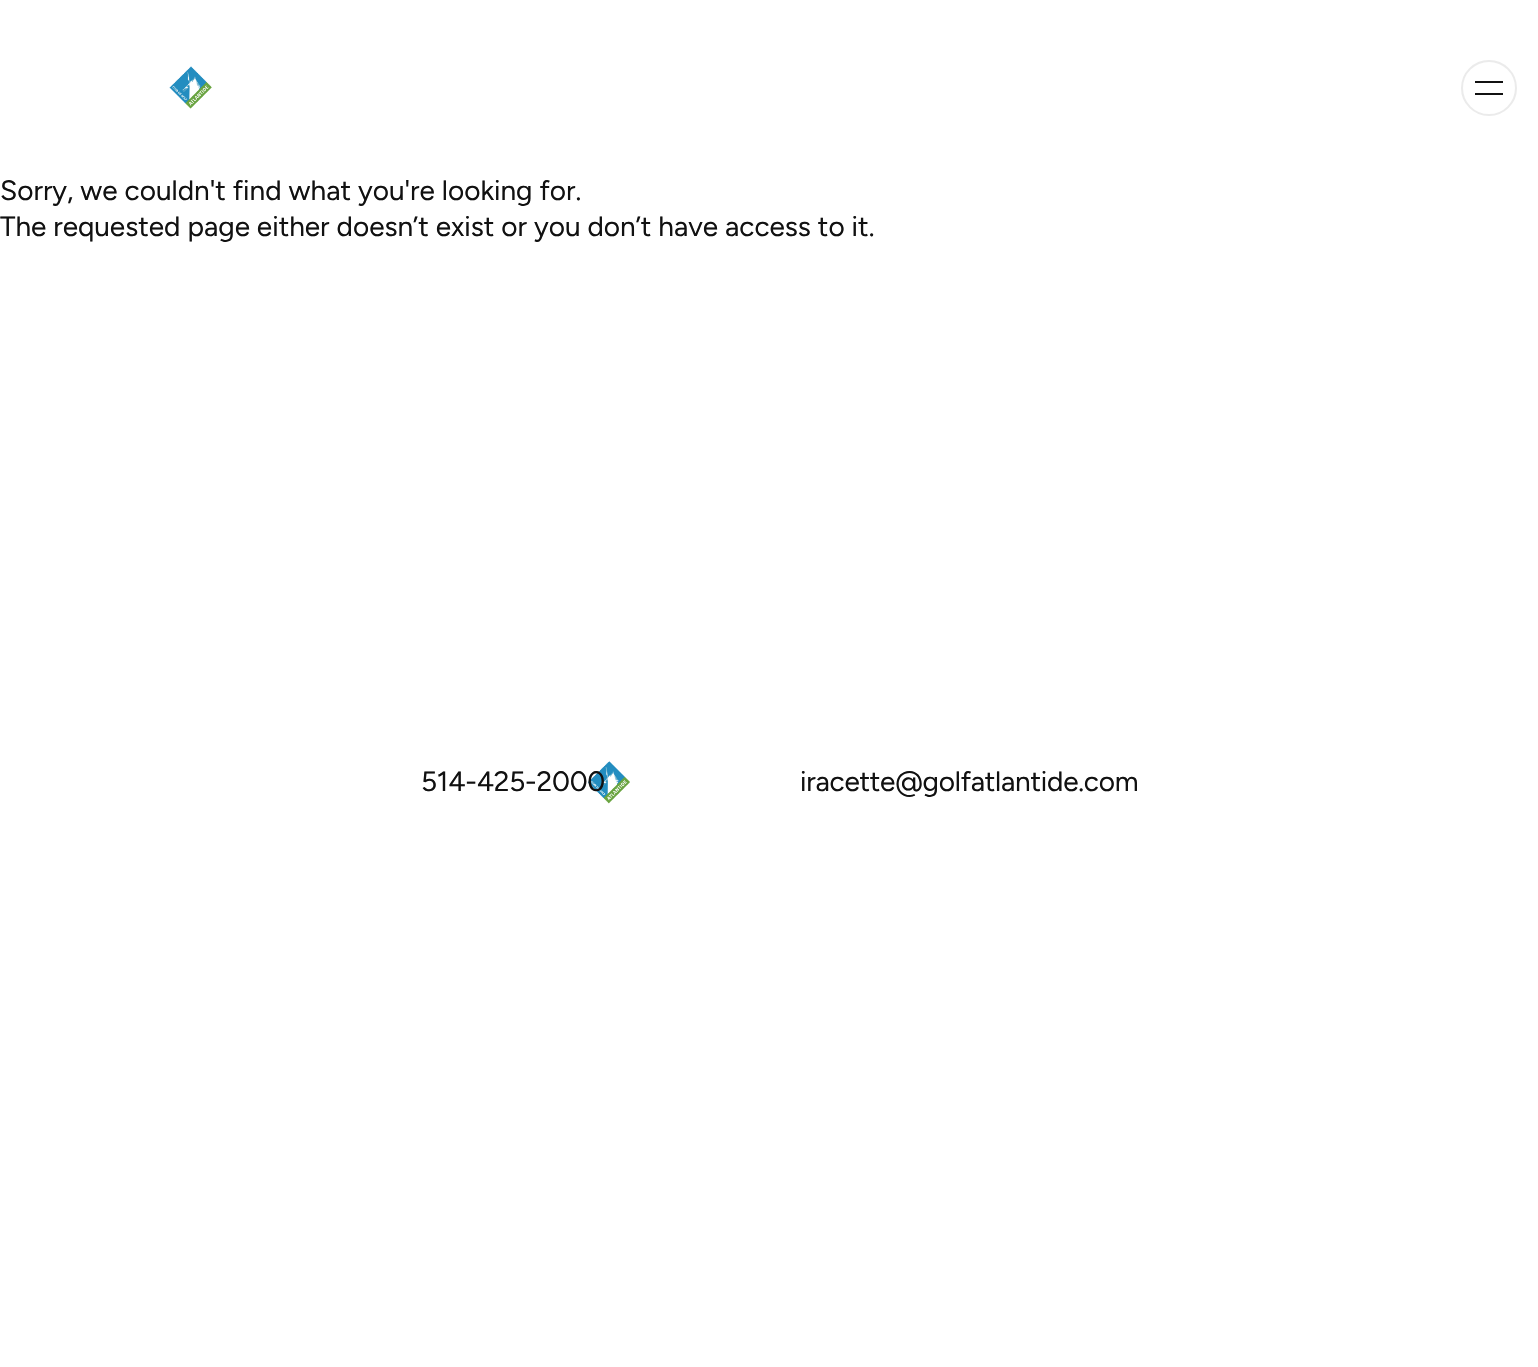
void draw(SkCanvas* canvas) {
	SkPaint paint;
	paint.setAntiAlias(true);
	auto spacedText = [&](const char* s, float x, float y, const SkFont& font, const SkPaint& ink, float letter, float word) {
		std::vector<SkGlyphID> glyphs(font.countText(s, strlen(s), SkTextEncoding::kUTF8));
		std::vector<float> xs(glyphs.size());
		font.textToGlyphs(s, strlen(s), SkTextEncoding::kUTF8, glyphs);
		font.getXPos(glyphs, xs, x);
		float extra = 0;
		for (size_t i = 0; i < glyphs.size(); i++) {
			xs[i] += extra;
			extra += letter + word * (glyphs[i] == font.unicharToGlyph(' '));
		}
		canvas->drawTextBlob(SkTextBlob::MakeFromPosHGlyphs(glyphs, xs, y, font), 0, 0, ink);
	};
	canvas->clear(0xffffffff);
	canvas->drawImageRect(SkImages::DeferredFromEncodedData(SkData::MakeFromFileName("img1.png")), SkRect::MakeXYWH(169, 66, 43, 43), SkSamplingOptions());
	paint.setStroke(true);
	paint.setStrokeWidth(2);
	paint.setColor(0xffebebeb);
	canvas->drawCircle(1489, 88, 27, paint);
	paint.setStroke(false);
	paint.setColor(0xff111111);
	canvas->drawRect(SkRect::MakeXYWH(1475, 81, 28, 2), paint);
	canvas->drawRect(SkRect::MakeXYWH(1475, 93, 28, 2), paint);
	SkFont f1(fontMgr->matchFamilyStyle("Figtree", SkFontStyle::Normal()), 28);
	f1.setSubpixel(true);
	canvas->drawString("Sorry, we couldn't find what you're looking for.", 0, 200, f1, paint);
	canvas->drawString("The requested page either doesn’t exist or you don’t have access to it.", 0, 236, f1, paint);
	canvas->drawImageRect(SkImages::DeferredFromEncodedData(SkData::MakeFromFileName("img2.png")), SkRect::MakeXYWH(588, 761, 42, 43), SkSamplingOptions());
	spacedText("514-425-2000", 421, 791, f1, paint, -0.25, 0);
	spacedText("iracette@golfatlantide.com", 800, 791, f1, paint, -0.25, 0);
}
